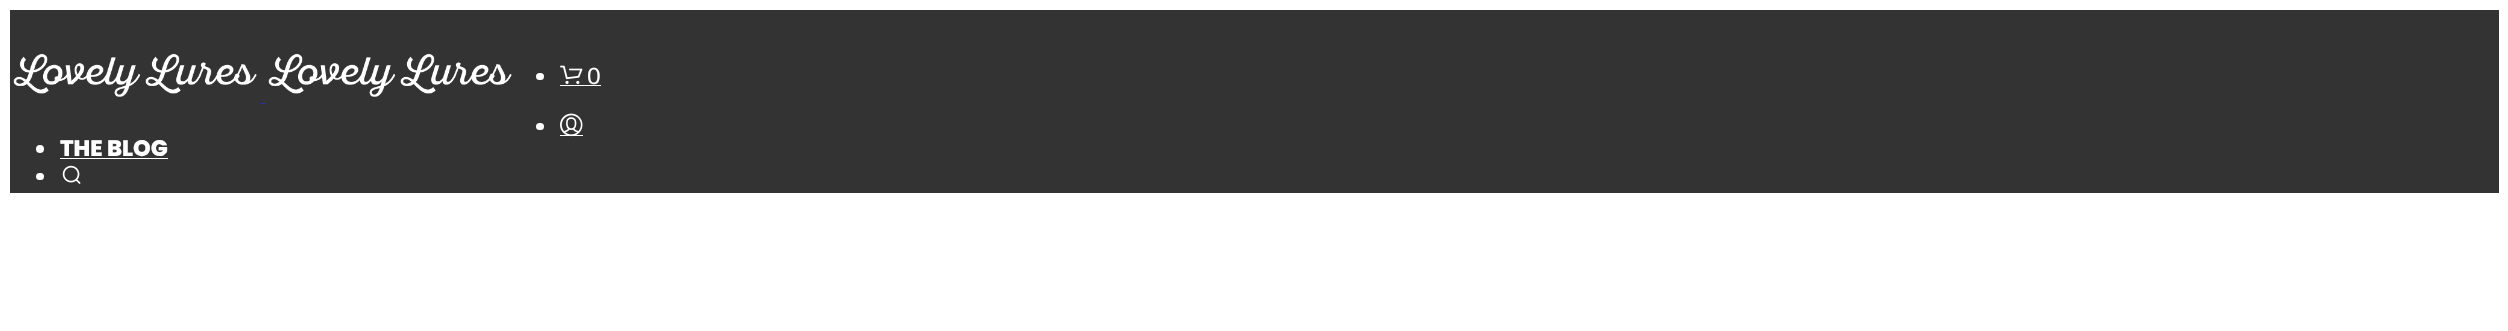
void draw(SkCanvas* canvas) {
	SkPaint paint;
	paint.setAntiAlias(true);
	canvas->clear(0xffffffff);
	paint.setColor(0xff333333);
	canvas->drawRect(SkRect::MakeXYWH(10, 10, 2489, 183), paint);
	canvas->drawImageRect(SkImages::DeferredFromEncodedData(SkData::MakeFromFileName("img1.png")), SkRect::MakeXYWH(13, 53, 244, 44), SkSamplingOptions());
	canvas->drawImageRect(SkImages::DeferredFromEncodedData(SkData::MakeFromFileName("img1.png")), SkRect::MakeXYWH(268, 53, 244, 44), SkSamplingOptions());
	paint.setColor(0xff2a2dd3);
	canvas->drawRect(SkRect::MakeXYWH(261, 103, 4, 1), paint);
	paint.setColor(0xffffffff);
	canvas->drawRoundRect(SkRect::MakeXYWH(536, 73, 8, 7), 3.5, 3.5, paint);
	canvas->drawImageRect(SkImages::DeferredFromEncodedData(SkData::MakeFromFileName("img2.png")), SkRect::MakeXYWH(560, 65, 23, 19), SkSamplingOptions());
	SkFont f1(fontMgr->matchFamilyStyle("Pontano Sans", SkFontStyle::Normal()), 22.5);
	f1.setSubpixel(true);
	canvas->drawString("0", 587, 84, f1, paint);
	canvas->drawRect(SkRect::MakeXYWH(560, 85, 41, 1), paint);
	canvas->drawRoundRect(SkRect::MakeXYWH(536, 123, 8, 7), 3.5, 3.5, paint);
	canvas->drawRect(SkRect::MakeXYWH(560, 135, 23, 1), paint);
	canvas->drawImageRect(SkImages::DeferredFromEncodedData(SkData::MakeFromFileName("img3.png")), SkRect::MakeXYWH(560, 113, 23, 24), SkSamplingOptions());
	canvas->drawRoundRect(SkRect::MakeXYWH(36, 173, 8, 7), 3.5, 3.5, paint);
	canvas->drawImageRect(SkImages::DeferredFromEncodedData(SkData::MakeFromFileName("img4.png")), SkRect::MakeXYWH(62, 165, 19, 19), SkSamplingOptions());
	canvas->drawCircle(40, 149, 4, paint);
	SkFont f2(fontMgr->matchFamilyStyle("Poppins", SkFontStyle(800, SkFontStyle::kNormal_Width, SkFontStyle::kUpright_Slant)), 22.5);
	f2.setSubpixel(true);
	canvas->drawString("THE BLOG", 60, 156, f2, paint);
	canvas->drawRect(SkRect::MakeXYWH(60, 158, 108, 1), paint);
}
